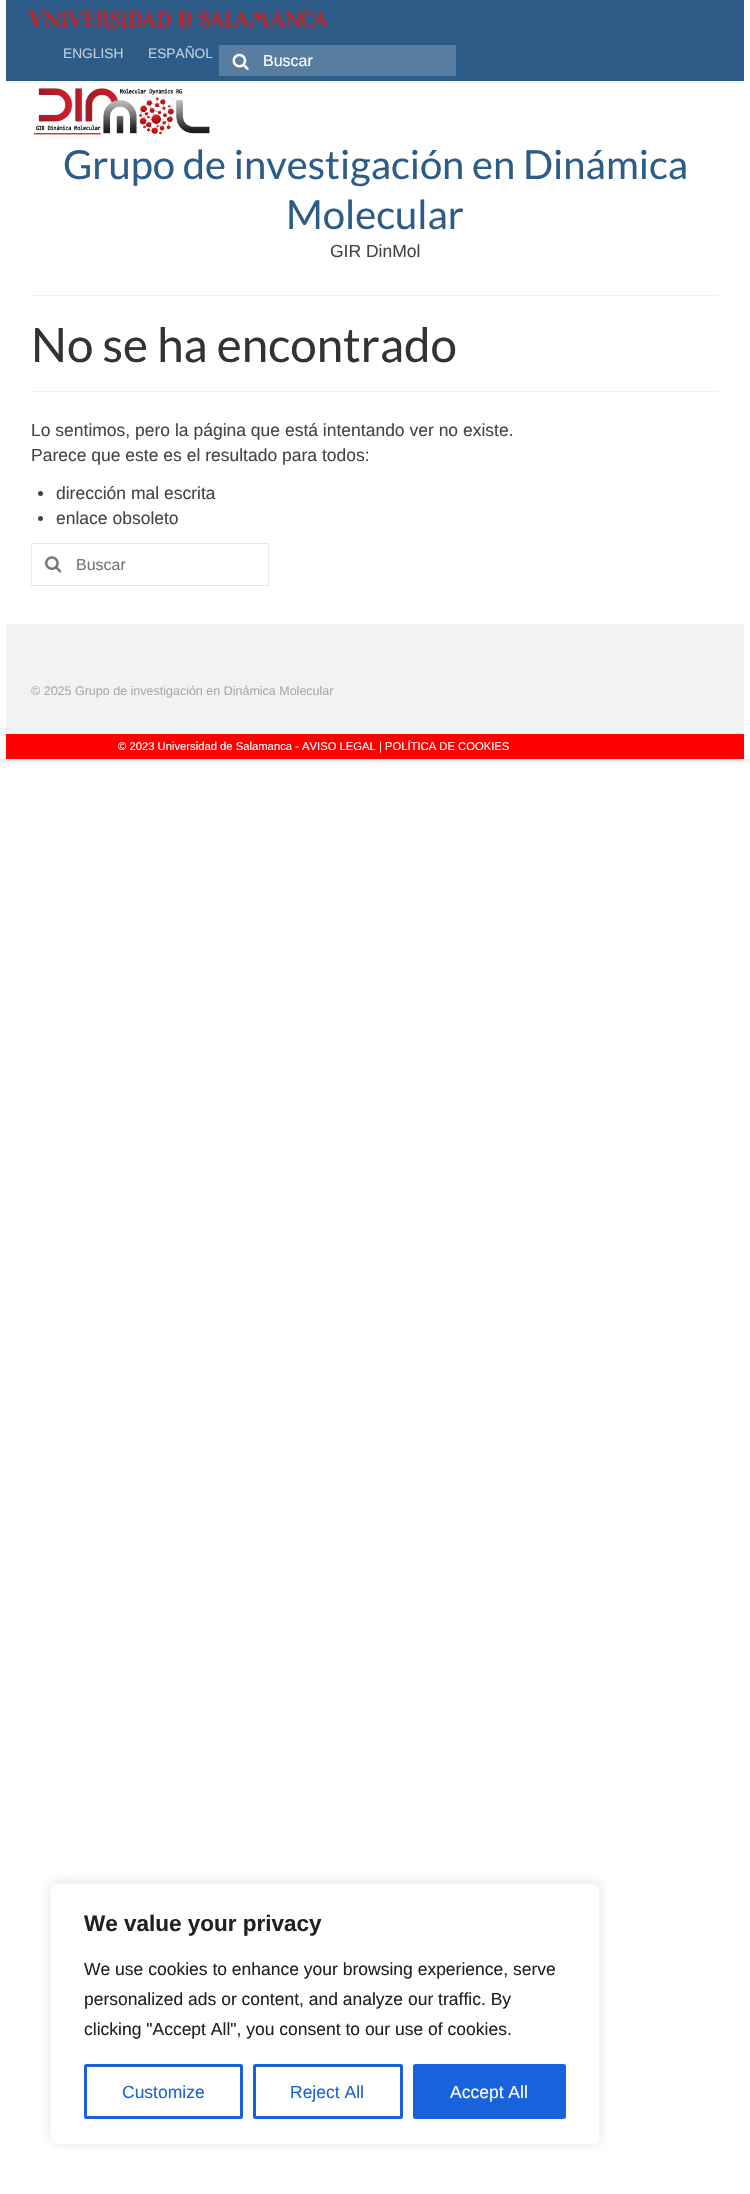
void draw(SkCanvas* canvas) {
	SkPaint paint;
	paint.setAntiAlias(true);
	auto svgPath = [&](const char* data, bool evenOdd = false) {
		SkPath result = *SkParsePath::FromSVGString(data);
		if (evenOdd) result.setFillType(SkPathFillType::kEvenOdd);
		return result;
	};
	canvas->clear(0xffffffff);
	canvas->save();
	canvas->clipPath(svgPath("M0 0H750V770H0ZM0 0H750V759H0Z", true), true);
	paint.setColor(0x29000000);
	paint.setMaskFilter(SkMaskFilter::MakeBlur(kNormal_SkBlurStyle, 3));
	canvas->drawRect(SkRect::MakeXYWH(-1, -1, 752, 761), paint);
	paint.setMaskFilter(nullptr);
	canvas->restore();
	paint.setColor(0xff2d5c88);
	canvas->drawRect(SkRect::MakeXYWH(6, 0, 738, 81), paint);
	canvas->drawImageRect(SkImages::DeferredFromEncodedData(SkData::MakeFromFileName("img1.png")), SkRect::MakeXYWH(26, 9, 302, 22), SkSamplingOptions());
	SkFont f1(fontMgr->matchFamilyStyle("Liberation Sans", SkFontStyle::Normal()), 13.75);
	f1.setSubpixel(true);
	paint.setColor(0xffc0cedb);
	canvas->drawString("ENGLISH", 63, 58, f1, paint);
	canvas->drawString("ESPAÑOL", 148, 58, f1, paint);
	paint.setColor(0xff577da0);
	canvas->drawRect(SkRect::MakeXYWH(219, 45, 237, 31), paint);
	canvas->drawImageRect(SkImages::DeferredFromEncodedData(SkData::MakeFromFileName("img2.png")), SkRect::MakeXYWH(232, 53, 17, 17), SkSamplingOptions());
	SkFont f2(fontMgr->matchFamilyStyle("Liberation Sans", SkFontStyle::Normal()), 16);
	f2.setSubpixel(true);
	paint.setColor(0xffffffff);
	canvas->drawString("Buscar", 263, 66, f2, paint);
	canvas->drawImageRect(SkImages::DeferredFromEncodedData(SkData::MakeFromFileName("img3.png")), SkRect::MakeXYWH(33, 88, 177, 47), SkSamplingOptions());
	SkFont f3(fontMgr->matchFamilyStyle("Lato", SkFontStyle::Normal()), 40);
	f3.setSubpixel(true);
	paint.setColor(0xff2d5c88);
	canvas->drawString("Grupo de investigación en Dinámica", 63, 179, f3, paint);
	canvas->drawString("Molecular", 286, 229, f3, paint);
	SkFont f4(fontMgr->matchFamilyStyle("Liberation Sans", SkFontStyle::Normal()), 17.5);
	f4.setSubpixel(true);
	paint.setColor(0xff444444);
	canvas->drawString("GIR DinMol", 330, 257, f4, paint);
	paint.setColor(0xfff2f2f2);
	canvas->drawRect(SkRect::MakeXYWH(31, 295, 688, 1), paint);
	canvas->drawRect(SkRect::MakeXYWH(31, 391, 688, 1), paint);
	SkFont f5(fontMgr->matchFamilyStyle("Lato", SkFontStyle::Normal()), 47.5);
	f5.setSubpixel(true);
	paint.setColor(0xff333333);
	canvas->drawString("No se ha encontrado", 31, 362, f5, paint);
	paint.setColor(0xff444444);
	canvas->drawString("Lo sentimos, pero la página que está intentando ver no existe.", 31, 436, f4, paint);
	canvas->drawString("Parece que este es el resultado para todos:", 31, 461, f4, paint);
	canvas->drawCircle(40.5, 493.5, 2.5, paint);
	canvas->drawString("dirección mal escrita", 56, 499, f4, paint);
	canvas->drawCircle(40.5, 518.5, 2.5, paint);
	canvas->drawString("enlace obsoleto", 56, 524, f4, paint);
	paint.setStroke(true);
	paint.setStrokeWidth(1);
	paint.setColor(0xffe7e7e7);
	canvas->drawRect(SkRect::MakeXYWH(31.5, 543.5, 237, 42), paint);
	canvas->drawImageRect(SkImages::DeferredFromEncodedData(SkData::MakeFromFileName("img4.png")), SkRect::MakeXYWH(45, 556, 17, 17), SkSamplingOptions());
	paint.setStroke(false);
	paint.setColor(0xff757575);
	canvas->drawString("Buscar", 76, 570, f2, paint);
	paint.setColor(0xfff2f2f2);
	canvas->drawRect(SkRect::MakeXYWH(6, 624, 738, 110), paint);
	SkFont f6(fontMgr->matchFamilyStyle("Liberation Sans", SkFontStyle::Normal()), 12.5);
	f6.setSubpixel(true);
	paint.setColor(0xffaaaaaa);
	canvas->drawString("© 2025 Grupo de investigación en Dinámica Molecular", 31, 695, f6, paint);
	paint.setColor(0xffff0000);
	canvas->drawRect(SkRect::MakeXYWH(6, 734, 738, 25), paint);
	SkFont f7(fontMgr->matchFamilyStyle("Liberation Sans", SkFontStyle::Normal()), 11.25);
	f7.setSubpixel(true);
	paint.setColor(0xffffffff);
	canvas->drawString("© 2023 Universidad de Salamanca - AVISO LEGAL | POLÍTICA DE COOKIES", 118, 750, f7, paint);
	canvas->save();
	canvas->clipPath(svgPath("M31 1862H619V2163H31ZM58 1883H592C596.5 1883 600 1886.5 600 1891V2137C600 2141.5 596.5 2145 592 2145H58C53.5 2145 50 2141.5 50 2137V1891C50 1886.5 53.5 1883 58 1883Z", true), true);
	paint.setColor(0x4dacabab);
	paint.setMaskFilter(SkMaskFilter::MakeBlur(kNormal_SkBlurStyle, 6));
	canvas->drawRoundRect(SkRect::MakeXYWH(50, 1881, 550, 263), 8, 8, paint);
	paint.setMaskFilter(nullptr);
	canvas->restore();
	paint.setStroke(true);
	paint.setColor(0xfff4f4f4);
	canvas->drawRoundRect(SkRect::MakeXYWH(50.5, 1883.5, 549, 261), 7.5, 7.5, paint);
	SkFont f8(fontMgr->matchFamilyStyle("Liberation Sans", SkFontStyle::Bold()), 22.5);
	f8.setSubpixel(true);
	paint.setStroke(false);
	paint.setColor(0xff212121);
	canvas->drawString("We value your privacy", 84, 1931, f8, paint);
	canvas->drawString("We use cookies to enhance your browsing experience, serve", 84, 1975, f4, paint);
	canvas->drawString("personalized ads or content, and analyze our traffic. By", 84, 2005, f4, paint);
	canvas->drawString("clicking \"Accept All\", you consent to our use of cookies.", 84, 2035, f4, paint);
	paint.setStroke(true);
	paint.setStrokeWidth(3);
	paint.setColor(0xff1863dc);
	canvas->drawRoundRect(SkRect::MakeXYWH(85.5, 2065.5, 156, 52), 1, 1, paint);
	paint.setStroke(false);
	canvas->drawString("Customize", 122, 2098, f4, paint);
	paint.setStroke(true);
	canvas->drawRoundRect(SkRect::MakeXYWH(254.5, 2065.5, 147, 52), 1, 1, paint);
	paint.setStroke(false);
	canvas->drawString("Reject All", 290, 2098, f4, paint);
	canvas->drawRoundRect(SkRect::MakeXYWH(414.5, 2065.5, 150, 52), 1, 1, paint);
	paint.setStroke(true);
	canvas->drawRoundRect(SkRect::MakeXYWH(414.5, 2065.5, 150, 52), 1, 1, paint);
	paint.setStroke(false);
	paint.setColor(0xffffffff);
	canvas->drawString("Accept All", 450, 2098, f4, paint);
}
